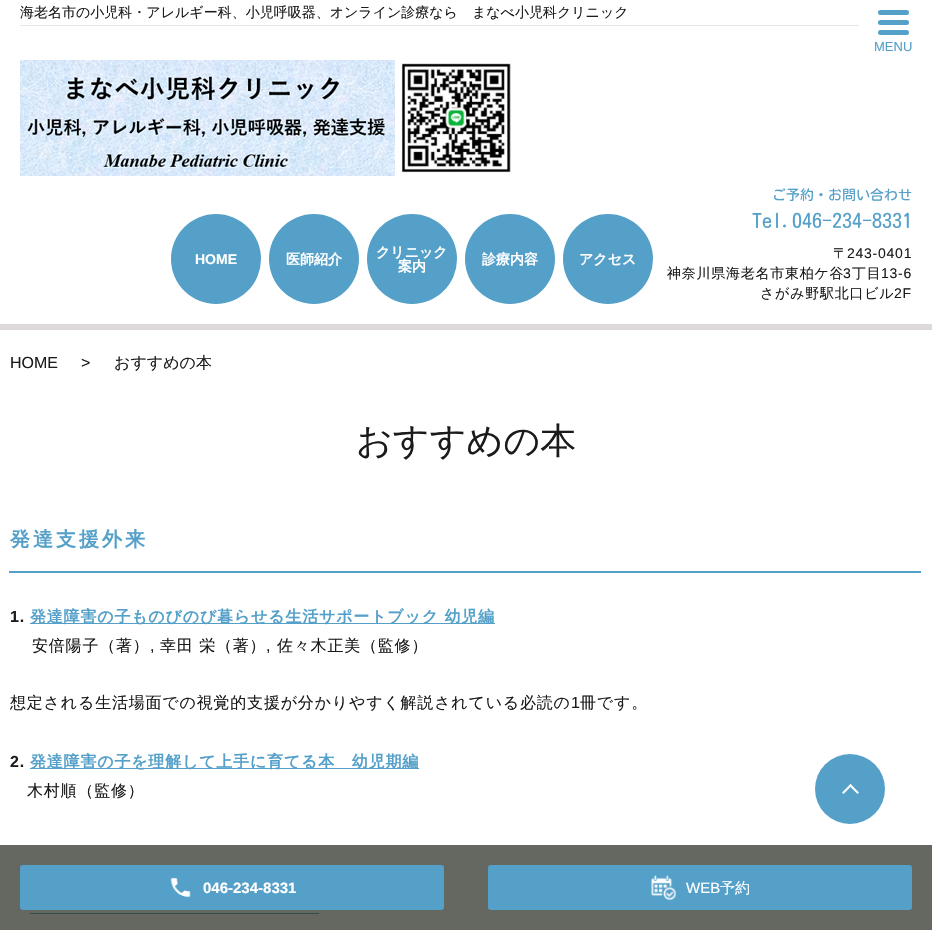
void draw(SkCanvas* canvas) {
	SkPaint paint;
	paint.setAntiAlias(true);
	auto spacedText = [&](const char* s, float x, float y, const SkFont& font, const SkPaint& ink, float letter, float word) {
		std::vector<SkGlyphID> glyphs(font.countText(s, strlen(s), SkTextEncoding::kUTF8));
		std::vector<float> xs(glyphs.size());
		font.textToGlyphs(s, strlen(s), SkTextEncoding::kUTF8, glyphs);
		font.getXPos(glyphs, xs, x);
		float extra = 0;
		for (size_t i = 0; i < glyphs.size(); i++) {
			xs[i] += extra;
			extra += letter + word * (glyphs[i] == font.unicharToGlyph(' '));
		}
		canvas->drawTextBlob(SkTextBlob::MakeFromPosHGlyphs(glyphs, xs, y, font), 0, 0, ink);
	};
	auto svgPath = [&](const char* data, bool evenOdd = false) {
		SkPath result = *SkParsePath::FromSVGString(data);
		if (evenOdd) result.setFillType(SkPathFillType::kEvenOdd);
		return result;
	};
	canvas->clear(0xffffffff);
	paint.setColor(0xffded9d9);
	canvas->drawRect(SkRect::MakeXYWH(0, 324, 932, 6), paint);
	paint.setColor(0xffe6e6e6);
	canvas->drawRect(SkRect::MakeXYWH(20, 25, 839, 1), paint);
	SkFont f1(fontMgr->matchFamilyStyle("WenQuanYi Zen Hei", SkFontStyle(500, SkFontStyle::kNormal_Width, SkFontStyle::kUpright_Slant)), 14);
	f1.setSubpixel(true);
	paint.setColor(0xff1b1b1b);
	canvas->drawString("海老名市の小児科・アレルギー科、小児呼吸器、オンライン診療なら　まなべ小児科クリニック", 20, 17, f1, paint);
	paint.setColor(0xff54a0c9);
	canvas->drawCircle(216, 259, 45, paint);
	SkFont f2(fontMgr->matchFamilyStyle("Liberation Sans", SkFontStyle::Bold()), 14);
	f2.setSubpixel(true);
	paint.setColor(0xffffffff);
	canvas->drawString("HOME", 195, 264, f2, paint);
	paint.setColor(0xff54a0c9);
	canvas->drawCircle(314, 259, 45, paint);
	SkFont f3(fontMgr->matchFamilyStyle("WenQuanYi Zen Hei", SkFontStyle::Bold()), 14);
	f3.setSubpixel(true);
	paint.setColor(0xffffffff);
	canvas->drawString("医師紹介", 286, 264, f3, paint);
	paint.setColor(0xff54a0c9);
	canvas->drawCircle(412, 259, 45, paint);
	paint.setColor(0xffffffff);
	canvas->drawString("クリニック", 376, 257, f3, paint);
	canvas->drawString("案内", 398, 271, f3, paint);
	paint.setColor(0xff54a0c9);
	canvas->drawCircle(510, 259, 45, paint);
	paint.setColor(0xffffffff);
	canvas->drawString("診療内容", 482, 264, f3, paint);
	paint.setColor(0xff54a0c9);
	canvas->drawCircle(608, 259, 45, paint);
	paint.setColor(0xffffffff);
	canvas->drawString("アクセス", 579, 264, f3, paint);
	paint.setColor(0xff54a0c9);
	canvas->drawRoundRect(SkRect::MakeXYWH(878, 10, 31, 5), 2.5, 2.5, paint);
	canvas->drawRoundRect(SkRect::MakeXYWH(878, 20, 31, 5), 2.5, 2.5, paint);
	canvas->drawRoundRect(SkRect::MakeXYWH(878, 30, 31, 5), 2.5, 2.5, paint);
	SkFont f4(fontMgr->matchFamilyStyle("Liberation Sans", SkFontStyle::Normal()), 13);
	f4.setSubpixel(true);
	canvas->drawString("MENU", 874, 51, f4, paint);
	SkFont f5(fontMgr->matchFamilyStyle("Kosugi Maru", SkFontStyle::Normal()), 14);
	f5.setSubpixel(true);
	canvas->drawString("ご予約・お問い合わせ", 772, 200, f5, paint);
	SkFont f6(fontMgr->matchFamilyStyle("Kosugi Maru", SkFontStyle::Normal()), 20);
	f6.setSubpixel(true);
	canvas->drawString("Tel.046-234-8331", 752, 228, f6, paint);
	paint.setColor(0xff1b1b1b);
	spacedText("〒", 833, 258, f1, paint, 0.75, 0);
	SkFont f7(fontMgr->matchFamilyStyle("Liberation Sans", SkFontStyle::Normal()), 14);
	f7.setSubpixel(true);
	spacedText("243-0401", 847, 258, f7, paint, 0.75, 0);
	spacedText("神奈川県海老名市東柏ケ谷", 667, 278, f1, paint, 0.75, 0);
	spacedText("3", 843, 278, f7, paint, 0.75, 0);
	spacedText("丁目", 852, 278, f1, paint, 0.75, 0);
	spacedText("13-6", 881, 278, f7, paint, 0.75, 0);
	spacedText("さがみ野駅北口ビル", 760, 298, f1, paint, 0.75, 0);
	spacedText("2F", 894, 298, f7, paint, 0.75, 0);
	canvas->drawImageRect(SkImages::DeferredFromEncodedData(SkData::MakeFromFileName("img1.png")), SkRect::MakeXYWH(20, 60, 375, 116), SkSamplingOptions());
	canvas->drawImageRect(SkImages::DeferredFromEncodedData(SkData::MakeFromFileName("img2.png")), SkRect::MakeXYWH(401, 63, 110, 110), SkSamplingOptions());
	SkFont f8(fontMgr->matchFamilyStyle("Liberation Sans", SkFontStyle::Normal()), 16);
	f8.setSubpixel(true);
	canvas->drawString("HOME", 10, 368, f8, paint);
	canvas->drawString(">", 81, 368, f8, paint);
	SkFont f9(fontMgr->matchFamilyStyle("WenQuanYi Zen Hei", SkFontStyle(500, SkFontStyle::kNormal_Width, SkFontStyle::kUpright_Slant)), 16);
	f9.setSubpixel(true);
	canvas->drawString("おすすめの本", 114, 368, f9, paint);
	SkFont f10(fontMgr->matchFamilyStyle("WenQuanYi Zen Hei", SkFontStyle(500, SkFontStyle::kNormal_Width, SkFontStyle::kUpright_Slant)), 36);
	f10.setSubpixel(true);
	canvas->drawString("おすすめの本", 356, 453, f10, paint);
	SkFont f11(fontMgr->matchFamilyStyle("WenQuanYi Zen Hei", SkFontStyle::Bold()), 20);
	f11.setSubpixel(true);
	paint.setColor(0xff54a0c9);
	spacedText("発達支援外来", 10, 546, f11, paint, 3, 0);
	canvas->drawRect(SkRect::MakeXYWH(9, 571, 912, 2), paint);
	SkFont f12(fontMgr->matchFamilyStyle("Liberation Sans", SkFontStyle::Bold()), 16);
	f12.setSubpixel(true);
	paint.setColor(0xff1b1b1b);
	spacedText("1.", 10, 622, f12, paint, 0.8, 0);
	paint.setColor(0xff54a0c9);
	canvas->drawRect(SkRect::MakeXYWH(30, 623, 465, 1), paint);
	SkFont f13(fontMgr->matchFamilyStyle("WenQuanYi Zen Hei", SkFontStyle::Bold()), 16);
	f13.setSubpixel(true);
	spacedText("発達障害の子ものびのび暮らせる生活サポートブック 幼児編", 30, 622, f13, paint, 0.8, 0);
	paint.setColor(0xff1b1b1b);
	spacedText("安倍陽子（著）", 32, 651, f9, paint, 0.8, 0);
	spacedText(",", 150, 651, f8, paint, 0.8, 0);
	spacedText("幸田 栄（著）", 160, 651, f9, paint, 0.8, 0);
	spacedText(",", 266, 651, f8, paint, 0.8, 0);
	spacedText("佐々木正美（監修）", 277, 651, f9, paint, 0.8, 0);
	spacedText("想定される生活場面での視覚的支援が分かりやすく解説されている必読の", 10, 708, f9, paint, 0.8, 0);
	spacedText("1", 571, 708, f8, paint, 0.8, 0);
	spacedText("冊です。", 580, 708, f9, paint, 0.8, 0);
	spacedText("2.", 10, 767, f12, paint, 0.8, 0);
	paint.setColor(0xff54a0c9);
	canvas->drawRect(SkRect::MakeXYWH(30, 768, 389, 1), paint);
	spacedText("発達障害の子を理解して上手に育てる本　幼児期編", 30, 767, f13, paint, 0.8, 0);
	paint.setColor(0xff1b1b1b);
	spacedText("木村順（監修）", 27, 796, f9, paint, 0.8, 0);
	paint.setColor(0xff54a0c9);
	canvas->drawRect(SkRect::MakeXYWH(30, 913, 289, 1), paint);
	canvas->drawCircle(850, 789, 35, paint);
	paint.setColor(0xffffffff);
	canvas->drawPath(svgPath("M850.5 784L859 792.5L857.5 794L849 785.5Z"), paint);
	canvas->drawPath(svgPath("M850.5 784L852 785.5L843.5 794L842 792.5Z"), paint);
	paint.setColor(0xb323281e);
	canvas->drawRect(SkRect::MakeXYWH(0, 845, 932, 85), paint);
	paint.setColor(0xff54a0c9);
	canvas->drawRoundRect(SkRect::MakeXYWH(20, 865, 424, 45), 3, 3, paint);
	canvas->drawImageRect(SkImages::DeferredFromEncodedData(SkData::MakeFromFileName("img3.png")), SkRect::MakeXYWH(170, 877, 21, 21), SkSamplingOptions());
	SkFont f14(fontMgr->matchFamilyStyle("Liberation Sans", SkFontStyle::Bold()), 15);
	f14.setSubpixel(true);
	paint.setColor(0xffffffff);
	canvas->drawString("046-234-8331", 203, 893, f14, paint);
	paint.setColor(0xff54a0c9);
	canvas->drawRoundRect(SkRect::MakeXYWH(488, 865, 424, 45), 3, 3, paint);
	canvas->drawImageRect(SkImages::DeferredFromEncodedData(SkData::MakeFromFileName("img4.png")), SkRect::MakeXYWH(651, 875, 25, 25), SkSamplingOptions());
	SkFont f15(fontMgr->matchFamilyStyle("Liberation Sans", SkFontStyle::Normal()), 15);
	f15.setSubpixel(true);
	paint.setColor(0xffffffff);
	canvas->drawString("WEB", 686, 893, f15, paint);
	SkFont f16(fontMgr->matchFamilyStyle("WenQuanYi Zen Hei", SkFontStyle(500, SkFontStyle::kNormal_Width, SkFontStyle::kUpright_Slant)), 15);
	f16.setSubpixel(true);
	canvas->drawString("予約", 720, 893, f16, paint);
}
